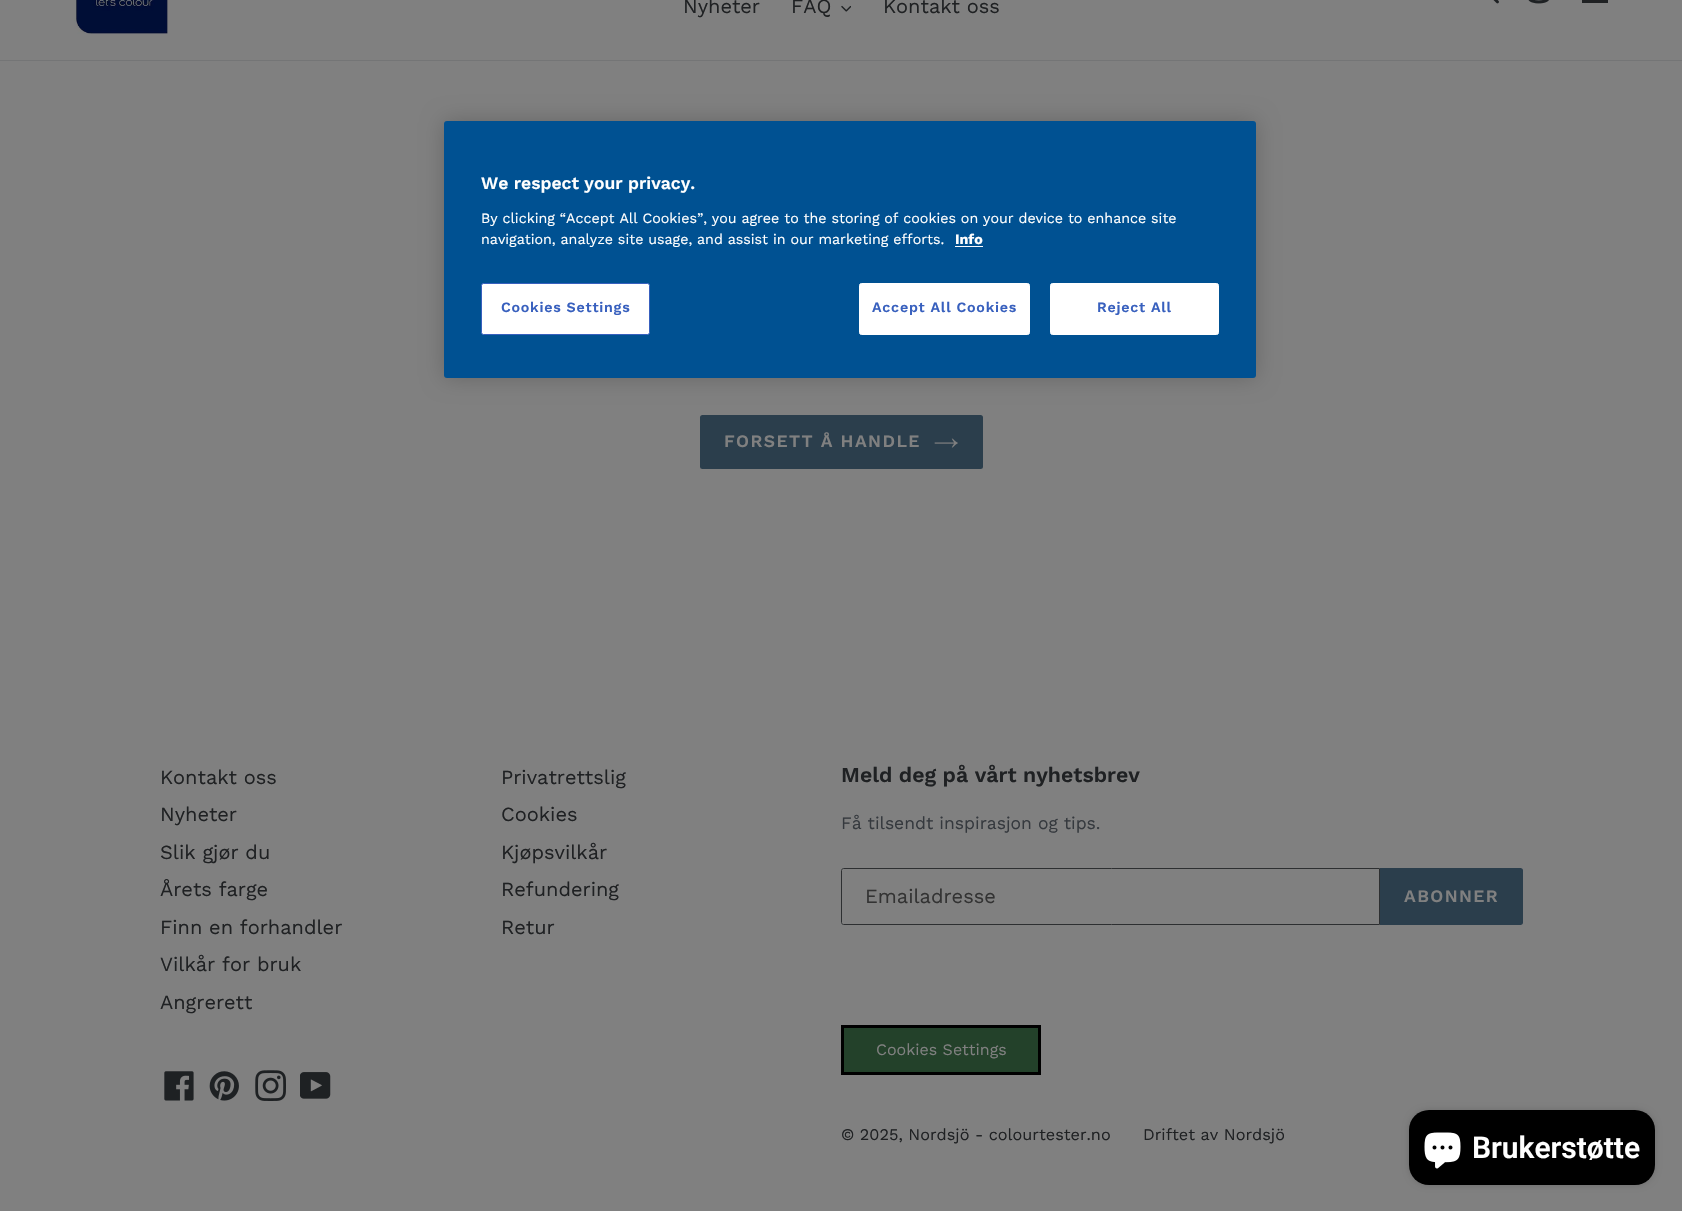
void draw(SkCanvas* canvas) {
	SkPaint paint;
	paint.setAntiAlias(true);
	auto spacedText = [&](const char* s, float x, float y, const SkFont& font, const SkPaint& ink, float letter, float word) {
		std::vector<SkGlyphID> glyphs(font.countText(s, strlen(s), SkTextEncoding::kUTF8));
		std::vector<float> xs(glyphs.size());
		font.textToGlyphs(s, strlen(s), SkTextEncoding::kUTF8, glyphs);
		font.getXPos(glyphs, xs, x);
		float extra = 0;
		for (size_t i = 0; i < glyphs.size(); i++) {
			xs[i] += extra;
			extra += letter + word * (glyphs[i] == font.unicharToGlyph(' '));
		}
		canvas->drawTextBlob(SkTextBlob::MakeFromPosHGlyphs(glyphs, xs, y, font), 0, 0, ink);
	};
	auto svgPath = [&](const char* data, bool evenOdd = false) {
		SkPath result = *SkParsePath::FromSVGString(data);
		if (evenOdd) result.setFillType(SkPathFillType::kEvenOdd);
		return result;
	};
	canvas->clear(0xff808080);
	paint.setColor(0xff747576);
	canvas->drawRect(SkRect::MakeXYWH(0, 60, 1682, 1), paint);
	canvas->drawImageRect(SkImages::DeferredFromEncodedData(SkData::MakeFromFileName("img1.png")), SkRect::MakeXYWH(74, 0, 94, 34), SkSamplingOptions());
	SkFont f1(fontMgr->matchFamilyStyle("Work Sans", SkFontStyle::Normal()), 20);
	f1.setSubpixel(true);
	paint.setColor(0xff1f2123);
	canvas->drawString("Nyheter", 683, 13, f1, paint);
	canvas->drawString("FAQ", 791, 13, f1, paint);
	canvas->drawImageRect(SkImages::DeferredFromEncodedData(SkData::MakeFromFileName("img2.png")), SkRect::MakeXYWH(841, 5, 10, 7), SkSamplingOptions());
	canvas->drawString("Kontakt oss", 883, 13, f1, paint);
	canvas->drawImageRect(SkImages::DeferredFromEncodedData(SkData::MakeFromFileName("img3.png")), SkRect::MakeXYWH(1493, 0, 6, 4), SkSamplingOptions());
	canvas->drawImageRect(SkImages::DeferredFromEncodedData(SkData::MakeFromFileName("img4.png")), SkRect::MakeXYWH(1528, 0, 21, 4), SkSamplingOptions());
	canvas->drawRect(SkRect::MakeXYWH(1582, 0, 26, 3), paint);
	paint.setColor(0x33000000);
	paint.setMaskFilter(SkMaskFilter::MakeBlur(kNormal_SkBlurStyle, 11));
	canvas->drawRoundRect(SkRect::MakeXYWH(444, 121, 812, 257), 3, 3, paint);
	paint.setMaskFilter(nullptr);
	paint.setColor(0xff005192);
	canvas->drawRoundRect(SkRect::MakeXYWH(444, 121, 812, 257), 3, 3, paint);
	SkFont f2(fontMgr->matchFamilyStyle("Work Sans", SkFontStyle(600, SkFontStyle::kNormal_Width, SkFontStyle::kUpright_Slant)), 17.5);
	f2.setSubpixel(true);
	paint.setColor(0xffffffff);
	canvas->drawString("We respect your privacy.", 481, 189, f2, paint);
	SkFont f3(fontMgr->matchFamilyStyle("Work Sans", SkFontStyle::Normal()), 14.25);
	f3.setSubpixel(true);
	canvas->drawString("By clicking “Accept All Cookies”, you agree to the storing of cookies on your device to enhance site", 481, 223, f3, paint);
	canvas->drawString("navigation, analyze site usage, and assist in our marketing efforts.", 481, 244, f3, paint);
	SkFont f4(fontMgr->matchFamilyStyle("Work Sans", SkFontStyle::Bold()), 14.25);
	f4.setSubpixel(true);
	canvas->drawString("Info", 955, 244, f4, paint);
	paint.setColor(0xfffafbff);
	canvas->drawRect(SkRect::MakeXYWH(955, 246, 28, 1), paint);
	paint.setColor(0xffffffff);
	canvas->drawRoundRect(SkRect::MakeXYWH(481.5, 283.5, 168, 51), 2, 2, paint);
	paint.setStroke(true);
	paint.setStrokeWidth(1);
	paint.setColor(0xff3860be);
	canvas->drawRoundRect(SkRect::MakeXYWH(481.5, 283.5, 168, 51), 2, 2, paint);
	SkFont f5(fontMgr->matchFamilyStyle("Work Sans", SkFontStyle(600, SkFontStyle::kNormal_Width, SkFontStyle::kUpright_Slant)), 14.25);
	f5.setSubpixel(true);
	paint.setStroke(false);
	spacedText("Cookies Settings", 501, 312, f5, paint, 0.75, 0);
	paint.setColor(0xffffffff);
	canvas->drawRoundRect(SkRect::MakeXYWH(859.5, 283.5, 170, 51), 2, 2, paint);
	paint.setStroke(true);
	canvas->drawRoundRect(SkRect::MakeXYWH(859.5, 283.5, 170, 51), 2, 2, paint);
	paint.setStroke(false);
	paint.setColor(0xff3860be);
	spacedText("Accept All Cookies", 872, 312, f5, paint, 0.75, 0);
	paint.setColor(0xffffffff);
	canvas->drawRoundRect(SkRect::MakeXYWH(1050.5, 283.5, 168, 51), 2, 2, paint);
	paint.setStroke(true);
	canvas->drawRoundRect(SkRect::MakeXYWH(1050.5, 283.5, 168, 51), 2, 2, paint);
	paint.setStroke(false);
	paint.setColor(0xff3860be);
	spacedText("Reject All", 1097, 312, f5, paint, 0.75, 0);
	paint.setColor(0xff2b3e4c);
	canvas->drawRoundRect(SkRect::MakeXYWH(700, 415, 283, 54), 2.5, 2.5, paint);
	paint.setColor(0xff808080);
	spacedText("FORSETT Å HANDLE", 724, 447, f2, paint, 1.4, 0);
	canvas->drawImageRect(SkImages::DeferredFromEncodedData(SkData::MakeFromFileName("img5.png")), SkRect::MakeXYWH(934, 438, 24, 10), SkSamplingOptions());
	paint.setColor(0xff1f2123);
	canvas->drawString("Kontakt oss", 160, 784, f1, paint);
	canvas->drawString("Nyheter", 160, 821, f1, paint);
	canvas->drawString("Slik gjør du", 160, 859, f1, paint);
	canvas->drawString("Årets farge", 160, 896, f1, paint);
	canvas->drawString("Finn en forhandler", 160, 934, f1, paint);
	canvas->drawString("Vilkår for bruk", 160, 971, f1, paint);
	canvas->drawString("Angrerett", 160, 1009, f1, paint);
	canvas->drawString("Privatrettslig", 501, 784, f1, paint);
	canvas->drawString("Cookies", 501, 821, f1, paint);
	canvas->drawString("Kjøpsvilkår", 501, 859, f1, paint);
	canvas->drawString("Refundering", 501, 896, f1, paint);
	canvas->drawString("Retur", 501, 934, f1, paint);
	SkFont f6(fontMgr->matchFamilyStyle("Work Sans", SkFontStyle(600, SkFontStyle::kNormal_Width, SkFontStyle::kUpright_Slant)), 21.25);
	f6.setSubpixel(true);
	canvas->drawString("Meld deg på vårt nyhetsbrev", 841, 782, f6, paint);
	SkFont f7(fontMgr->matchFamilyStyle("Work Sans", SkFontStyle::Normal()), 17.5);
	f7.setSubpixel(true);
	paint.setColor(0xff35393e);
	canvas->drawString("Få tilsendt inspirasjon og tips.", 841, 829, f7, paint);
	paint.setStroke(true);
	paint.setColor(0xff2d2f31);
	canvas->drawPath(svgPath("M843.5 868.5H1379.5V924.5H843.5C842.5 924.5 841.5 923.5 841.5 922.5V870.5C841.5 869.5 842.5 868.5 843.5 868.5Z"), paint);
	paint.setStroke(false);
	paint.setColor(0xff333333);
	canvas->drawString("Emailadresse", 865, 903, f1, paint);
	paint.setColor(0xff2b3e4c);
	canvas->drawPath(svgPath("M1380 868H1520.5C1522 868 1523 869 1523 870.5V922.5C1523 924 1522 925 1520.5 925H1380Z"), paint);
	paint.setColor(0xff808080);
	spacedText("ABONNER", 1404, 902, f2, paint, 1.4, 0);
	canvas->drawImageRect(SkImages::DeferredFromEncodedData(SkData::MakeFromFileName("img6.png")), SkRect::MakeXYWH(164, 1071, 30, 30), SkSamplingOptions());
	canvas->drawImageRect(SkImages::DeferredFromEncodedData(SkData::MakeFromFileName("img7.png")), SkRect::MakeXYWH(209, 1071, 30, 30), SkSamplingOptions());
	canvas->drawImageRect(SkImages::DeferredFromEncodedData(SkData::MakeFromFileName("img8.png")), SkRect::MakeXYWH(255, 1070, 31, 31), SkSamplingOptions());
	canvas->drawImageRect(SkImages::DeferredFromEncodedData(SkData::MakeFromFileName("img9.png")), SkRect::MakeXYWH(300, 1072, 31, 27), SkSamplingOptions());
	paint.setColor(0xff23412a);
	canvas->drawRect(SkRect::MakeXYWH(842.5, 1026.5, 197, 47), paint);
	paint.setStroke(true);
	paint.setStrokeWidth(3);
	paint.setColor(0xff000000);
	canvas->drawRect(SkRect::MakeXYWH(842.5, 1026.5, 197, 47), paint);
	SkFont f8(fontMgr->matchFamilyStyle("Work Sans", SkFontStyle::Normal()), 16);
	f8.setSubpixel(true);
	paint.setStroke(false);
	paint.setColor(0xff808080);
	canvas->drawString("Cookies Settings", 876, 1055, f8, paint);
	SkFont f9(fontMgr->matchFamilyStyle("Work Sans", SkFontStyle::Normal()), 16.25);
	f9.setSubpixel(true);
	paint.setColor(0xff1f2123);
	canvas->drawString("© 2025, Nordsjö - colourtester.no", 841, 1140, f9, paint);
	canvas->drawString("Driftet av Nordsjö", 1143, 1140, f9, paint);
	paint.setColor(0x26000000);
	paint.setMaskFilter(SkMaskFilter::MakeBlur(kNormal_SkBlurStyle, 3));
	canvas->drawRoundRect(SkRect::MakeXYWH(1409, 1110, 246, 75), 20, 20, paint);
	paint.setMaskFilter(nullptr);
	paint.setColor(0xff000000);
	canvas->drawRoundRect(SkRect::MakeXYWH(1409, 1110, 246, 75), 20, 20, paint);
	canvas->drawImageRect(SkImages::DeferredFromEncodedData(SkData::MakeFromFileName("img10.png")), SkRect::MakeXYWH(1424, 1132, 37, 37), SkSamplingOptions());
	SkFont f10(fontMgr->matchFamilyStyle("Roboto", SkFontStyle(600, SkFontStyle::kNormal_Width, SkFontStyle::kUpright_Slant)), 30);
	f10.setSubpixel(true);
	paint.setColor(0xffffffff);
	canvas->drawString("Brukerstøtte", 1472, 1158, f10, paint);
}
